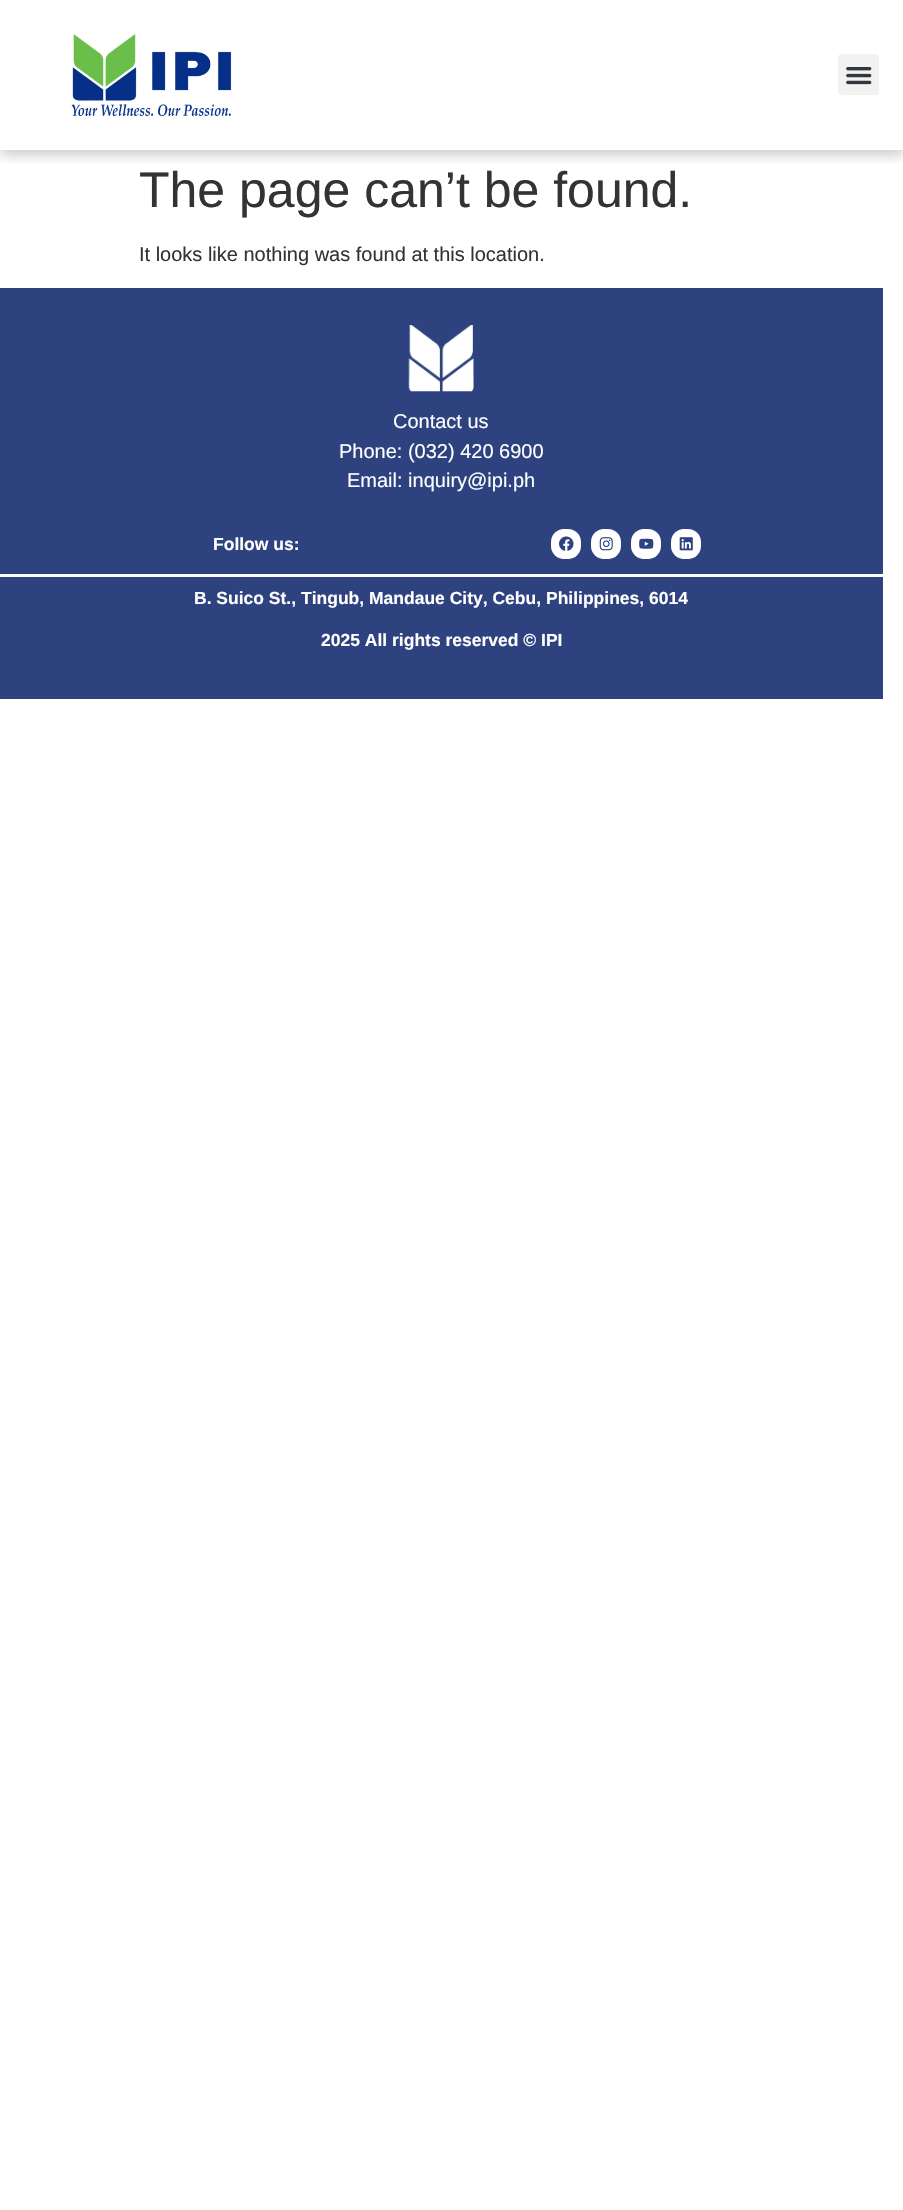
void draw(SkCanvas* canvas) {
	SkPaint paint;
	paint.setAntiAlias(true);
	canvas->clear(0xffffffff);
	canvas->save();
	canvas->clipRect(SkRect::MakeXYWH(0, 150, 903, 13));
	paint.setColor(0x33000000);
	paint.setMaskFilter(SkMaskFilter::MakeBlur(kNormal_SkBlurStyle, 6));
	canvas->drawRect(SkRect::MakeXYWH(0, 5, 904, 150), paint);
	paint.setMaskFilter(nullptr);
	canvas->restore();
	canvas->drawImageRect(SkImages::DeferredFromEncodedData(SkData::MakeFromFileName("img1.png")), SkRect::MakeXYWH(71, 34, 161, 83), SkSamplingOptions());
	paint.setColor(0xfff2f2f2);
	canvas->drawRoundRect(SkRect::MakeXYWH(838, 54, 41, 41), 4, 4, paint);
	canvas->drawImageRect(SkImages::DeferredFromEncodedData(SkData::MakeFromFileName("img2.png")), SkRect::MakeXYWH(846, 67, 26, 18), SkSamplingOptions());
	SkFont f1(fontMgr->matchFamilyStyle("Liberation Sans", SkFontStyle::Normal()), 50);
	f1.setSubpixel(true);
	paint.setColor(0xff333333);
	canvas->drawString("The page can’t be found.", 139, 207, f1, paint);
	SkFont f2(fontMgr->matchFamilyStyle("Liberation Sans", SkFontStyle::Normal()), 20);
	f2.setSubpixel(true);
	canvas->drawString("It looks like nothing was found at this location.", 139, 261, f2, paint);
	paint.setColor(0xff2e4280);
	canvas->drawRect(SkRect::MakeXYWH(0, 288, 883, 411), paint);
	canvas->drawImageRect(SkImages::DeferredFromEncodedData(SkData::MakeFromFileName("img3.png")), SkRect::MakeXYWH(408, 325, 66, 67), SkSamplingOptions());
	paint.setColor(0xffffffff);
	canvas->drawString("Contact us", 393, 428, f2, paint);
	canvas->drawString("Phone: (032) 420 6900", 339, 458, f2, paint);
	canvas->drawString("Email: inquiry@ipi.ph", 347, 487, f2, paint);
	SkFont f3(fontMgr->matchFamilyStyle("Liberation Sans", SkFontStyle::Bold()), 17.5);
	f3.setSubpixel(true);
	canvas->drawString("Follow us:", 213, 550, f3, paint);
	canvas->drawRoundRect(SkRect::MakeXYWH(551, 529, 30, 30), 13, 13, paint);
	canvas->drawImageRect(SkImages::DeferredFromEncodedData(SkData::MakeFromFileName("img4.png")), SkRect::MakeXYWH(559, 536, 15, 15), SkSamplingOptions());
	canvas->drawRoundRect(SkRect::MakeXYWH(591, 529, 30, 30), 13, 13, paint);
	canvas->drawImageRect(SkImages::DeferredFromEncodedData(SkData::MakeFromFileName("img5.png")), SkRect::MakeXYWH(599, 537, 14, 14), SkSamplingOptions());
	canvas->drawRoundRect(SkRect::MakeXYWH(631, 529, 30, 30), 13, 13, paint);
	canvas->drawImageRect(SkImages::DeferredFromEncodedData(SkData::MakeFromFileName("img6.png")), SkRect::MakeXYWH(639, 538, 15, 11), SkSamplingOptions());
	canvas->drawRoundRect(SkRect::MakeXYWH(671, 529, 30, 30), 13, 13, paint);
	canvas->drawImageRect(SkImages::DeferredFromEncodedData(SkData::MakeFromFileName("img7.png")), SkRect::MakeXYWH(679, 537, 14, 14), SkSamplingOptions());
	canvas->drawRect(SkRect::MakeXYWH(0, 574, 883, 3), paint);
	canvas->drawString("B. Suico St., Tingub, Mandaue City, Cebu, Philippines, 6014", 194, 604, f3, paint);
	canvas->drawString("2025 All rights reserved © IPI", 321, 646, f3, paint);
}
